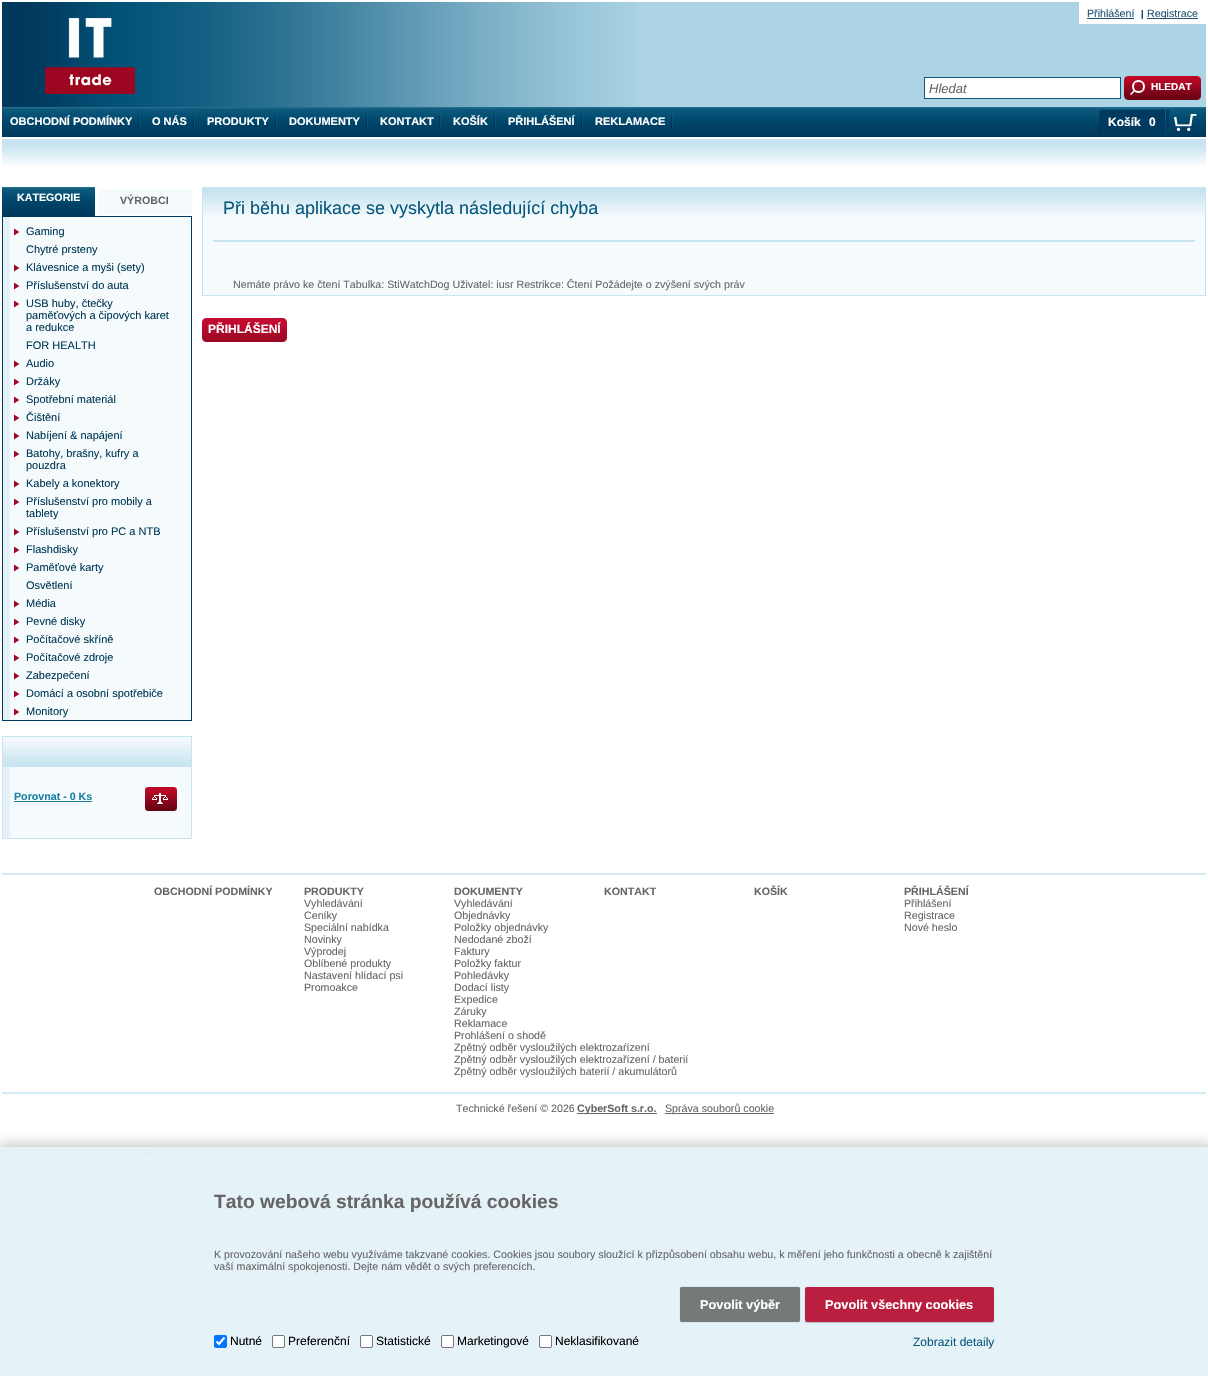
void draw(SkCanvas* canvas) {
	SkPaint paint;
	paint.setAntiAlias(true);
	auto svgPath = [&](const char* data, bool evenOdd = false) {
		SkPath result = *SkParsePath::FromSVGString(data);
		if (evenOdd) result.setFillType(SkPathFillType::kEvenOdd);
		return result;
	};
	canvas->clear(0xffffffff);
	paint.setColor(0xffe5f2f7);
	canvas->drawRect(SkRect::MakeXYWH(0, 1147, 1208, 229), paint);
	paint.setColor(0xffacd4e5);
	canvas->drawRect(SkRect::MakeXYWH(636, 2, 570, 105), paint);
	canvas->drawImageRect(SkImages::DeferredFromEncodedData(SkData::MakeFromFileName("img1.png")), SkRect::MakeXYWH(2, 2, 634, 105), SkSamplingOptions());
	canvas->drawImageRect(SkImages::DeferredFromEncodedData(SkData::MakeFromFileName("img2.png")), SkRect::MakeXYWH(45, 18, 91, 76), SkSamplingOptions());
	paint.setColor(0xffffffff);
	canvas->drawRect(SkRect::MakeXYWH(1079, 2, 127, 22), paint);
	SkFont f1(fontMgr->matchFamilyStyle("Liberation Sans", SkFontStyle::Normal()), 10.67);
	f1.setSubpixel(true);
	paint.setColor(0xff225373);
	canvas->drawString("Přihlášení", 1087, 17, f1, paint);
	canvas->drawRect(SkRect::MakeXYWH(1087, 18, 47, 1), paint);
	canvas->drawImageRect(SkImages::DeferredFromEncodedData(SkData::MakeFromFileName("img3.png")), SkRect::MakeXYWH(1141, 10, 2, 9), SkSamplingOptions());
	canvas->drawRect(SkRect::MakeXYWH(1147, 18, 51, 1), paint);
	canvas->drawString("Registrace", 1147, 17, f1, paint);
	canvas->drawImageRect(SkImages::DeferredFromEncodedData(SkData::MakeFromFileName("img4.png")), SkRect::MakeXYWH(2, 107, 1204, 30), SkSamplingOptions());
	canvas->drawImageRect(SkImages::DeferredFromEncodedData(SkData::MakeFromFileName("img5.png")), SkRect::MakeXYWH(138, 115, 2, 13), SkSamplingOptions());
	SkFont f2(fontMgr->matchFamilyStyle("Liberation Sans", SkFontStyle::Bold()), 11);
	f2.setSubpixel(true);
	paint.setColor(0xffffffff);
	canvas->drawString("OBCHODNÍ PODMÍNKY", 10, 125, f2, paint);
	canvas->drawImageRect(SkImages::DeferredFromEncodedData(SkData::MakeFromFileName("img5.png")), SkRect::MakeXYWH(193, 115, 2, 13), SkSamplingOptions());
	canvas->drawString("O NÁS", 152, 125, f2, paint);
	canvas->drawImageRect(SkImages::DeferredFromEncodedData(SkData::MakeFromFileName("img5.png")), SkRect::MakeXYWH(275, 115, 2, 13), SkSamplingOptions());
	canvas->drawString("PRODUKTY", 207, 125, f2, paint);
	canvas->drawImageRect(SkImages::DeferredFromEncodedData(SkData::MakeFromFileName("img5.png")), SkRect::MakeXYWH(366, 115, 2, 13), SkSamplingOptions());
	canvas->drawString("DOKUMENTY", 289, 125, f2, paint);
	canvas->drawImageRect(SkImages::DeferredFromEncodedData(SkData::MakeFromFileName("img5.png")), SkRect::MakeXYWH(439, 115, 2, 13), SkSamplingOptions());
	canvas->drawString("KONTAKT", 380, 125, f2, paint);
	canvas->drawImageRect(SkImages::DeferredFromEncodedData(SkData::MakeFromFileName("img5.png")), SkRect::MakeXYWH(494, 115, 2, 13), SkSamplingOptions());
	canvas->drawString("KOŠÍK", 453, 125, f2, paint);
	canvas->drawImageRect(SkImages::DeferredFromEncodedData(SkData::MakeFromFileName("img5.png")), SkRect::MakeXYWH(581, 115, 2, 13), SkSamplingOptions());
	canvas->drawString("PŘIHLÁŠENÍ", 508, 125, f2, paint);
	canvas->drawImageRect(SkImages::DeferredFromEncodedData(SkData::MakeFromFileName("img5.png")), SkRect::MakeXYWH(671, 115, 2, 13), SkSamplingOptions());
	canvas->drawString("REKLAMACE", 595, 125, f2, paint);
	canvas->drawImageRect(SkImages::DeferredFromEncodedData(SkData::MakeFromFileName("img6.png")), SkRect::MakeXYWH(2, 139, 1204, 27), SkSamplingOptions());
	paint.setColor(0xff003a5f);
	canvas->drawRect(SkRect::MakeXYWH(1100, 110, 69, 22), paint);
	canvas->drawImageRect(SkImages::DeferredFromEncodedData(SkData::MakeFromFileName("img7.png")), SkRect::MakeXYWH(1099, 110, 1, 24), SkSamplingOptions());
	SkFont f3(fontMgr->matchFamilyStyle("Liberation Sans", SkFontStyle::Bold()), 12);
	f3.setSubpixel(true);
	paint.setColor(0xffffffff);
	canvas->drawString("Košík", 1108, 126, f3, paint);
	canvas->drawImageRect(SkImages::DeferredFromEncodedData(SkData::MakeFromFileName("img8.png")), SkRect::MakeXYWH(1165, 110, 1, 24), SkSamplingOptions());
	canvas->drawString("0", 1149, 126, f3, paint);
	canvas->drawImageRect(SkImages::DeferredFromEncodedData(SkData::MakeFromFileName("img9.png")), SkRect::MakeXYWH(1174, 114, 23, 17), SkSamplingOptions());
	canvas->drawRect(SkRect::MakeXYWH(924.5, 77.5, 196, 21), paint);
	paint.setStroke(true);
	paint.setStrokeWidth(1);
	paint.setColor(0xff0a597d);
	canvas->drawRect(SkRect::MakeXYWH(924.5, 77.5, 196, 21), paint);
	SkFont f4(fontMgr->matchFamilyStyle("Liberation Sans", SkFontStyle::Italic()), 13);
	f4.setSubpixel(true);
	paint.setStroke(false);
	paint.setColor(0xff666666);
	canvas->drawString("Hledat", 929, 93, f4, paint);
	canvas->drawImageRect(SkImages::DeferredFromEncodedData(SkData::MakeFromFileName("img10.png")), SkRect::MakeXYWH(1124, 76, 77, 24), SkSamplingOptions());
	SkFont f5(fontMgr->matchFamilyStyle("Liberation Sans", SkFontStyle::Bold()), 10);
	f5.setSubpixel(true);
	paint.setColor(0xffffffff);
	canvas->drawString("HLEDAT", 1151, 90, f5, paint);
	canvas->drawImageRect(SkImages::DeferredFromEncodedData(SkData::MakeFromFileName("img11.png")), SkRect::MakeXYWH(2, 187, 93, 29), SkSamplingOptions());
	SkFont f6(fontMgr->matchFamilyStyle("Liberation Sans", SkFontStyle::Bold()), 10.67);
	f6.setSubpixel(true);
	canvas->drawString("KATEGORIE", 17, 201, f6, paint);
	paint.setColor(0xfff5fafc);
	canvas->drawRect(SkRect::MakeXYWH(98, 189, 94, 26), paint);
	paint.setColor(0xff666666);
	canvas->drawString("VÝROBCI", 120, 204, f6, paint);
	canvas->drawImageRect(SkImages::DeferredFromEncodedData(SkData::MakeFromFileName("img12.png")), SkRect::MakeXYWH(2, 217, 190, 503), SkSamplingOptions());
	paint.setColor(0xff00395d);
	canvas->drawRect(SkRect::MakeXYWH(2, 216, 190, 1), paint);
	canvas->drawRect(SkRect::MakeXYWH(2, 720, 190, 1), paint);
	canvas->drawImageRect(SkImages::DeferredFromEncodedData(SkData::MakeFromFileName("img13.png")), SkRect::MakeXYWH(14, 228, 6, 8), SkSamplingOptions());
	SkFont f7(fontMgr->matchFamilyStyle("Liberation Sans", SkFontStyle::Normal()), 11);
	f7.setSubpixel(true);
	paint.setColor(0xff013956);
	canvas->drawString("Gaming", 26, 235, f7, paint);
	canvas->drawString("Chytré prsteny", 26, 253, f7, paint);
	canvas->drawImageRect(SkImages::DeferredFromEncodedData(SkData::MakeFromFileName("img13.png")), SkRect::MakeXYWH(14, 264, 6, 8), SkSamplingOptions());
	canvas->drawString("Klávesnice a myši (sety)", 26, 271, f7, paint);
	canvas->drawImageRect(SkImages::DeferredFromEncodedData(SkData::MakeFromFileName("img13.png")), SkRect::MakeXYWH(14, 282, 6, 8), SkSamplingOptions());
	canvas->drawString("Příslušenství do auta", 26, 289, f7, paint);
	canvas->drawImageRect(SkImages::DeferredFromEncodedData(SkData::MakeFromFileName("img13.png")), SkRect::MakeXYWH(14, 300, 6, 8), SkSamplingOptions());
	canvas->drawString("USB huby, čtečky", 26, 307, f7, paint);
	canvas->drawString("paměťových a čipových karet", 26, 319, f7, paint);
	canvas->drawString("a redukce", 26, 331, f7, paint);
	canvas->drawString("FOR HEALTH", 26, 349, f7, paint);
	canvas->drawImageRect(SkImages::DeferredFromEncodedData(SkData::MakeFromFileName("img13.png")), SkRect::MakeXYWH(14, 360, 6, 8), SkSamplingOptions());
	canvas->drawString("Audio", 26, 367, f7, paint);
	canvas->drawImageRect(SkImages::DeferredFromEncodedData(SkData::MakeFromFileName("img13.png")), SkRect::MakeXYWH(14, 378, 6, 8), SkSamplingOptions());
	canvas->drawString("Držáky", 26, 385, f7, paint);
	canvas->drawImageRect(SkImages::DeferredFromEncodedData(SkData::MakeFromFileName("img13.png")), SkRect::MakeXYWH(14, 396, 6, 8), SkSamplingOptions());
	canvas->drawString("Spotřební materiál", 26, 403, f7, paint);
	canvas->drawImageRect(SkImages::DeferredFromEncodedData(SkData::MakeFromFileName("img13.png")), SkRect::MakeXYWH(14, 414, 6, 8), SkSamplingOptions());
	canvas->drawString("Čištění", 26, 421, f7, paint);
	canvas->drawImageRect(SkImages::DeferredFromEncodedData(SkData::MakeFromFileName("img13.png")), SkRect::MakeXYWH(14, 432, 6, 8), SkSamplingOptions());
	canvas->drawString("Nabíjení & napájení", 26, 439, f7, paint);
	canvas->drawImageRect(SkImages::DeferredFromEncodedData(SkData::MakeFromFileName("img13.png")), SkRect::MakeXYWH(14, 450, 6, 8), SkSamplingOptions());
	canvas->drawString("Batohy, brašny, kufry a", 26, 457, f7, paint);
	canvas->drawString("pouzdra", 26, 469, f7, paint);
	canvas->drawImageRect(SkImages::DeferredFromEncodedData(SkData::MakeFromFileName("img13.png")), SkRect::MakeXYWH(14, 480, 6, 8), SkSamplingOptions());
	canvas->drawString("Kabely a konektory", 26, 487, f7, paint);
	canvas->drawImageRect(SkImages::DeferredFromEncodedData(SkData::MakeFromFileName("img13.png")), SkRect::MakeXYWH(14, 498, 6, 8), SkSamplingOptions());
	canvas->drawString("Příslušenství pro mobily a", 26, 505, f7, paint);
	canvas->drawString("tablety", 26, 517, f7, paint);
	canvas->drawImageRect(SkImages::DeferredFromEncodedData(SkData::MakeFromFileName("img13.png")), SkRect::MakeXYWH(14, 528, 6, 8), SkSamplingOptions());
	canvas->drawString("Příslušenství pro PC a NTB", 26, 535, f7, paint);
	canvas->drawImageRect(SkImages::DeferredFromEncodedData(SkData::MakeFromFileName("img13.png")), SkRect::MakeXYWH(14, 546, 6, 8), SkSamplingOptions());
	canvas->drawString("Flashdisky", 26, 553, f7, paint);
	canvas->drawImageRect(SkImages::DeferredFromEncodedData(SkData::MakeFromFileName("img13.png")), SkRect::MakeXYWH(14, 564, 6, 8), SkSamplingOptions());
	canvas->drawString("Paměťové karty", 26, 571, f7, paint);
	canvas->drawString("Osvětlení", 26, 589, f7, paint);
	canvas->drawImageRect(SkImages::DeferredFromEncodedData(SkData::MakeFromFileName("img13.png")), SkRect::MakeXYWH(14, 600, 6, 8), SkSamplingOptions());
	canvas->drawString("Média", 26, 607, f7, paint);
	canvas->drawImageRect(SkImages::DeferredFromEncodedData(SkData::MakeFromFileName("img13.png")), SkRect::MakeXYWH(14, 618, 6, 8), SkSamplingOptions());
	canvas->drawString("Pevné disky", 26, 625, f7, paint);
	canvas->drawImageRect(SkImages::DeferredFromEncodedData(SkData::MakeFromFileName("img13.png")), SkRect::MakeXYWH(14, 636, 6, 8), SkSamplingOptions());
	canvas->drawString("Počítačové skříně", 26, 643, f7, paint);
	canvas->drawImageRect(SkImages::DeferredFromEncodedData(SkData::MakeFromFileName("img13.png")), SkRect::MakeXYWH(14, 654, 6, 8), SkSamplingOptions());
	canvas->drawString("Počítačové zdroje", 26, 661, f7, paint);
	canvas->drawImageRect(SkImages::DeferredFromEncodedData(SkData::MakeFromFileName("img13.png")), SkRect::MakeXYWH(14, 672, 6, 8), SkSamplingOptions());
	canvas->drawString("Zabezpečení", 26, 679, f7, paint);
	canvas->drawImageRect(SkImages::DeferredFromEncodedData(SkData::MakeFromFileName("img13.png")), SkRect::MakeXYWH(14, 690, 6, 8), SkSamplingOptions());
	canvas->drawString("Domácí a osobní spotřebiče", 26, 697, f7, paint);
	canvas->drawImageRect(SkImages::DeferredFromEncodedData(SkData::MakeFromFileName("img13.png")), SkRect::MakeXYWH(14, 708, 6, 8), SkSamplingOptions());
	canvas->drawString("Monitory", 26, 715, f7, paint);
	canvas->drawImageRect(SkImages::DeferredFromEncodedData(SkData::MakeFromFileName("img14.png")), SkRect::MakeXYWH(3, 737, 188, 30), SkSamplingOptions());
	paint.setStroke(true);
	paint.setColor(0xffc7e4f0);
	canvas->drawRect(SkRect::MakeXYWH(2.5, 736.5, 189, 102), paint);
	paint.setStroke(false);
	paint.setColor(0xfff5fafc);
	canvas->drawRect(SkRect::MakeXYWH(10, 767, 181, 71), paint);
	paint.setColor(0xffe4f1f7);
	canvas->drawRect(SkRect::MakeXYWH(3, 767, 7, 71), paint);
	paint.setColor(0xff177fa5);
	canvas->drawString("Porovnat - 0 Ks", 14, 800, f6, paint);
	canvas->drawRect(SkRect::MakeXYWH(14, 801, 78, 1), paint);
	canvas->drawImageRect(SkImages::DeferredFromEncodedData(SkData::MakeFromFileName("img15.png")), SkRect::MakeXYWH(145, 787, 32, 24), SkSamplingOptions());
	paint.setColor(0xffc7e4f0);
	canvas->drawRect(SkRect::MakeXYWH(202, 187, 1004, 1), paint);
	canvas->drawRect(SkRect::MakeXYWH(202, 295, 1004, 1), paint);
	paint.setColor(0xfff5fafc);
	canvas->drawRect(SkRect::MakeXYWH(203, 215, 1002, 80), paint);
	canvas->drawImageRect(SkImages::DeferredFromEncodedData(SkData::MakeFromFileName("img16.png")), SkRect::MakeXYWH(203, 188, 1002, 27), SkSamplingOptions());
	paint.setColor(0xffc7e4f0);
	canvas->drawRect(SkRect::MakeXYWH(1205, 188, 1, 107), paint);
	canvas->drawRect(SkRect::MakeXYWH(202, 188, 1, 107), paint);
	canvas->drawRect(SkRect::MakeXYWH(213, 240, 982, 2), paint);
	SkFont f8(fontMgr->matchFamilyStyle("Liberation Sans", SkFontStyle::Normal()), 18);
	f8.setSubpixel(true);
	paint.setColor(0xff0a597d);
	canvas->drawString("Při běhu aplikace se vyskytla následující chyba", 223, 214, f8, paint);
	paint.setColor(0xff666666);
	canvas->drawString("Nemáte právo ke čtení Tabulka: StiWatchDog Uživatel: iusr Restrikce: Čtení Požádejte o zvýšení svých práv", 233, 288, f1, paint);
	canvas->drawImageRect(SkImages::DeferredFromEncodedData(SkData::MakeFromFileName("img17.png")), SkRect::MakeXYWH(202, 318, 6, 24), SkSamplingOptions());
	canvas->drawImageRect(SkImages::DeferredFromEncodedData(SkData::MakeFromFileName("img18.png")), SkRect::MakeXYWH(208, 318, 73, 24), SkSamplingOptions());
	paint.setColor(0xffffffff);
	canvas->drawString("PŘIHLÁŠENÍ", 208, 333, f3, paint);
	canvas->drawImageRect(SkImages::DeferredFromEncodedData(SkData::MakeFromFileName("img19.png")), SkRect::MakeXYWH(281, 318, 6, 24), SkSamplingOptions());
	paint.setColor(0xffd4eaf4);
	canvas->drawRect(SkRect::MakeXYWH(2, 873, 1204, 2), paint);
	paint.setColor(0xff666666);
	canvas->drawString("OBCHODNÍ PODMÍNKY", 154, 895, f6, paint);
	canvas->drawString("PRODUKTY", 304, 895, f6, paint);
	canvas->drawString("Vyhledávání", 304, 907, f1, paint);
	canvas->drawString("Ceníky", 304, 919, f1, paint);
	canvas->drawString("Speciální nabídka", 304, 931, f1, paint);
	canvas->drawString("Novinky", 304, 943, f1, paint);
	canvas->drawString("Výprodej", 304, 955, f1, paint);
	canvas->drawString("Oblíbené produkty", 304, 967, f1, paint);
	canvas->drawString("Nastavení hlídací psi", 304, 979, f1, paint);
	canvas->drawString("Promoakce", 304, 991, f1, paint);
	canvas->drawString("DOKUMENTY", 454, 895, f6, paint);
	canvas->drawString("Vyhledávání", 454, 907, f1, paint);
	canvas->drawString("Objednávky", 454, 919, f1, paint);
	canvas->drawString("Položky objednávky", 454, 931, f1, paint);
	canvas->drawString("Nedodané zboží", 454, 943, f1, paint);
	canvas->drawString("Faktury", 454, 955, f1, paint);
	canvas->drawString("Položky faktur", 454, 967, f1, paint);
	canvas->drawString("Pohledávky", 454, 979, f1, paint);
	canvas->drawString("Dodací listy", 454, 991, f1, paint);
	canvas->drawString("Expedice", 454, 1003, f1, paint);
	canvas->drawString("Záruky", 454, 1015, f1, paint);
	canvas->drawString("Reklamace", 454, 1027, f1, paint);
	canvas->drawString("Prohlášení o shodě", 454, 1039, f1, paint);
	canvas->drawString("Zpětný odběr vysloužilých elektrozaŕízení", 454, 1051, f1, paint);
	canvas->drawString("Zpětný odběr vysloužilých elektrozařízení / baterií", 454, 1063, f1, paint);
	canvas->drawString("Zpětný odběr vysloužilých baterií / akumulátorů", 454, 1075, f1, paint);
	canvas->drawString("KOŠÍK", 754, 895, f6, paint);
	canvas->drawString("PŘIHLÁŠENÍ", 904, 895, f6, paint);
	canvas->drawString("Přihlášení", 904, 907, f1, paint);
	canvas->drawString("Registrace", 904, 919, f1, paint);
	canvas->drawString("Nové heslo", 904, 931, f1, paint);
	canvas->drawString("KONTAKT", 604, 895, f6, paint);
	paint.setColor(0xffd4eaf4);
	canvas->drawRect(SkRect::MakeXYWH(2, 1092, 1204, 2), paint);
	paint.setColor(0xff666666);
	canvas->drawString("Technické řešení © 2026", 456, 1112, f1, paint);
	canvas->drawRect(SkRect::MakeXYWH(577, 1113, 80, 1), paint);
	canvas->drawString("CyberSoft s.r.o.", 577, 1112, f6, paint);
	canvas->drawRect(SkRect::MakeXYWH(665, 1113, 109, 1), paint);
	canvas->drawString("Správa souborů cookie", 665, 1112, f1, paint);
	paint.setStroke(true);
	paint.setColor(0xffe1edf3);
	canvas->drawRoundRect(SkRect::MakeXYWH(2.5, 1150.5, 149, 3), 1.5, 1.5, paint);
	canvas->save();
	canvas->clipRect(SkRect::MakeXYWH(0, 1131, 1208, 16));
	paint.setStroke(false);
	paint.setColor(0xffc0c0c0);
	paint.setMaskFilter(SkMaskFilter::MakeBlur(kNormal_SkBlurStyle, 7));
	canvas->drawRect(SkRect::MakeXYWH(-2, 1145, 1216, 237), paint);
	paint.setMaskFilter(nullptr);
	canvas->restore();
	SkFont f9(fontMgr->matchFamilyStyle("Liberation Sans", SkFontStyle::Bold()), 19.25);
	f9.setSubpixel(true);
	paint.setColor(0xff666666);
	canvas->drawString("Tato webová stránka používá cookies", 214, 1208, f9, paint);
	canvas->drawString("K provozování našeho webu využíváme takzvané cookies. Cookies jsou soubory sloužící k přizpůsobení obsahu webu, k měření jeho funkčnosti a obecně k zajištění", 214, 1258, f1, paint);
	canvas->drawString("vaší maximální spokojenosti. Dejte nám vědět o svých preferencích.", 214, 1270, f1, paint);
	canvas->save();
	canvas->clipPath(svgPath("M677 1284H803V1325H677ZM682 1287H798C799 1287 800 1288 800 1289V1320C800 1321 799 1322 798 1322H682C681 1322 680 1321 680 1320V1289C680 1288 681 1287 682 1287Z", true), true);
	paint.setColor(0xcc5a5a5a);
	paint.setMaskFilter(SkMaskFilter::MakeBlur(kNormal_SkBlurStyle, 0.5));
	canvas->drawRoundRect(SkRect::MakeXYWH(680, 1287, 120, 35), 2, 2, paint);
	paint.setMaskFilter(nullptr);
	canvas->restore();
	canvas->drawRoundRect(SkRect::MakeXYWH(680, 1287, 120, 35), 2, 2, paint);
	SkFont f10(fontMgr->matchFamilyStyle("Liberation Sans", SkFontStyle::Bold()), 12.75);
	f10.setSubpixel(true);
	paint.setColor(0xffffffff);
	canvas->drawString("Povolit výběr", 700, 1309, f10, paint);
	canvas->save();
	canvas->clipPath(svgPath("M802 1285H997V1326H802ZM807 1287H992C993 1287 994 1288 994 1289V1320C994 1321 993 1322 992 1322H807C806 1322 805 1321 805 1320V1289C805 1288 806 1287 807 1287Z", true), true);
	paint.setColor(0x33000000);
	paint.setMaskFilter(SkMaskFilter::MakeBlur(kNormal_SkBlurStyle, 0.5));
	canvas->drawRoundRect(SkRect::MakeXYWH(805, 1288, 189, 35), 2, 2, paint);
	paint.setMaskFilter(nullptr);
	canvas->restore();
	paint.setColor(0xe6b4092b);
	canvas->drawRoundRect(SkRect::MakeXYWH(805, 1287, 189, 35), 2, 2, paint);
	paint.setColor(0xffffffff);
	canvas->drawString("Povolit všechny cookies", 825, 1309, f10, paint);
	paint.setColor(0xff0075ff);
	canvas->drawRoundRect(SkRect::MakeXYWH(214, 1335, 13, 13), 2, 2, paint);
	paint.setStroke(true);
	paint.setStrokeWidth(2.1);
	paint.setColor(0xffffffff);
	canvas->drawPath(svgPath("M216.5 1341.5L219 1344L224.5 1337.5"), paint);
	SkFont f11(fontMgr->matchFamilyStyle("Liberation Sans", SkFontStyle::Normal()), 12);
	f11.setSubpixel(true);
	paint.setStroke(false);
	paint.setColor(0xff000000);
	canvas->drawString("Nutné", 230, 1345, f11, paint);
	paint.setColor(0xffffffff);
	canvas->drawRoundRect(SkRect::MakeXYWH(272.5, 1335.5, 12, 12), 1.5, 1.5, paint);
	paint.setStroke(true);
	paint.setStrokeWidth(1);
	paint.setColor(0xff767676);
	canvas->drawRoundRect(SkRect::MakeXYWH(272.5, 1335.5, 12, 12), 1.5, 1.5, paint);
	paint.setStroke(false);
	paint.setColor(0xff000000);
	canvas->drawString("Preferenční", 288, 1345, f11, paint);
	paint.setColor(0xffffffff);
	canvas->drawRoundRect(SkRect::MakeXYWH(360.5, 1335.5, 12, 12), 1.5, 1.5, paint);
	paint.setStroke(true);
	paint.setColor(0xff767676);
	canvas->drawRoundRect(SkRect::MakeXYWH(360.5, 1335.5, 12, 12), 1.5, 1.5, paint);
	paint.setStroke(false);
	paint.setColor(0xff000000);
	canvas->drawString("Statistické", 376, 1345, f11, paint);
	paint.setColor(0xffffffff);
	canvas->drawRoundRect(SkRect::MakeXYWH(441.5, 1335.5, 12, 12), 1.5, 1.5, paint);
	paint.setStroke(true);
	paint.setColor(0xff767676);
	canvas->drawRoundRect(SkRect::MakeXYWH(441.5, 1335.5, 12, 12), 1.5, 1.5, paint);
	paint.setStroke(false);
	paint.setColor(0xff000000);
	canvas->drawString("Marketingové", 457, 1345, f11, paint);
	paint.setColor(0xffffffff);
	canvas->drawRoundRect(SkRect::MakeXYWH(539.5, 1335.5, 12, 12), 1.5, 1.5, paint);
	paint.setStroke(true);
	paint.setColor(0xff767676);
	canvas->drawRoundRect(SkRect::MakeXYWH(539.5, 1335.5, 12, 12), 1.5, 1.5, paint);
	paint.setStroke(false);
	paint.setColor(0xff000000);
	canvas->drawString("Neklasifikované", 555, 1345, f11, paint);
	paint.setColor(0xff0a597d);
	canvas->drawString("Zobrazit detaily", 913, 1346, f11, paint);
}
